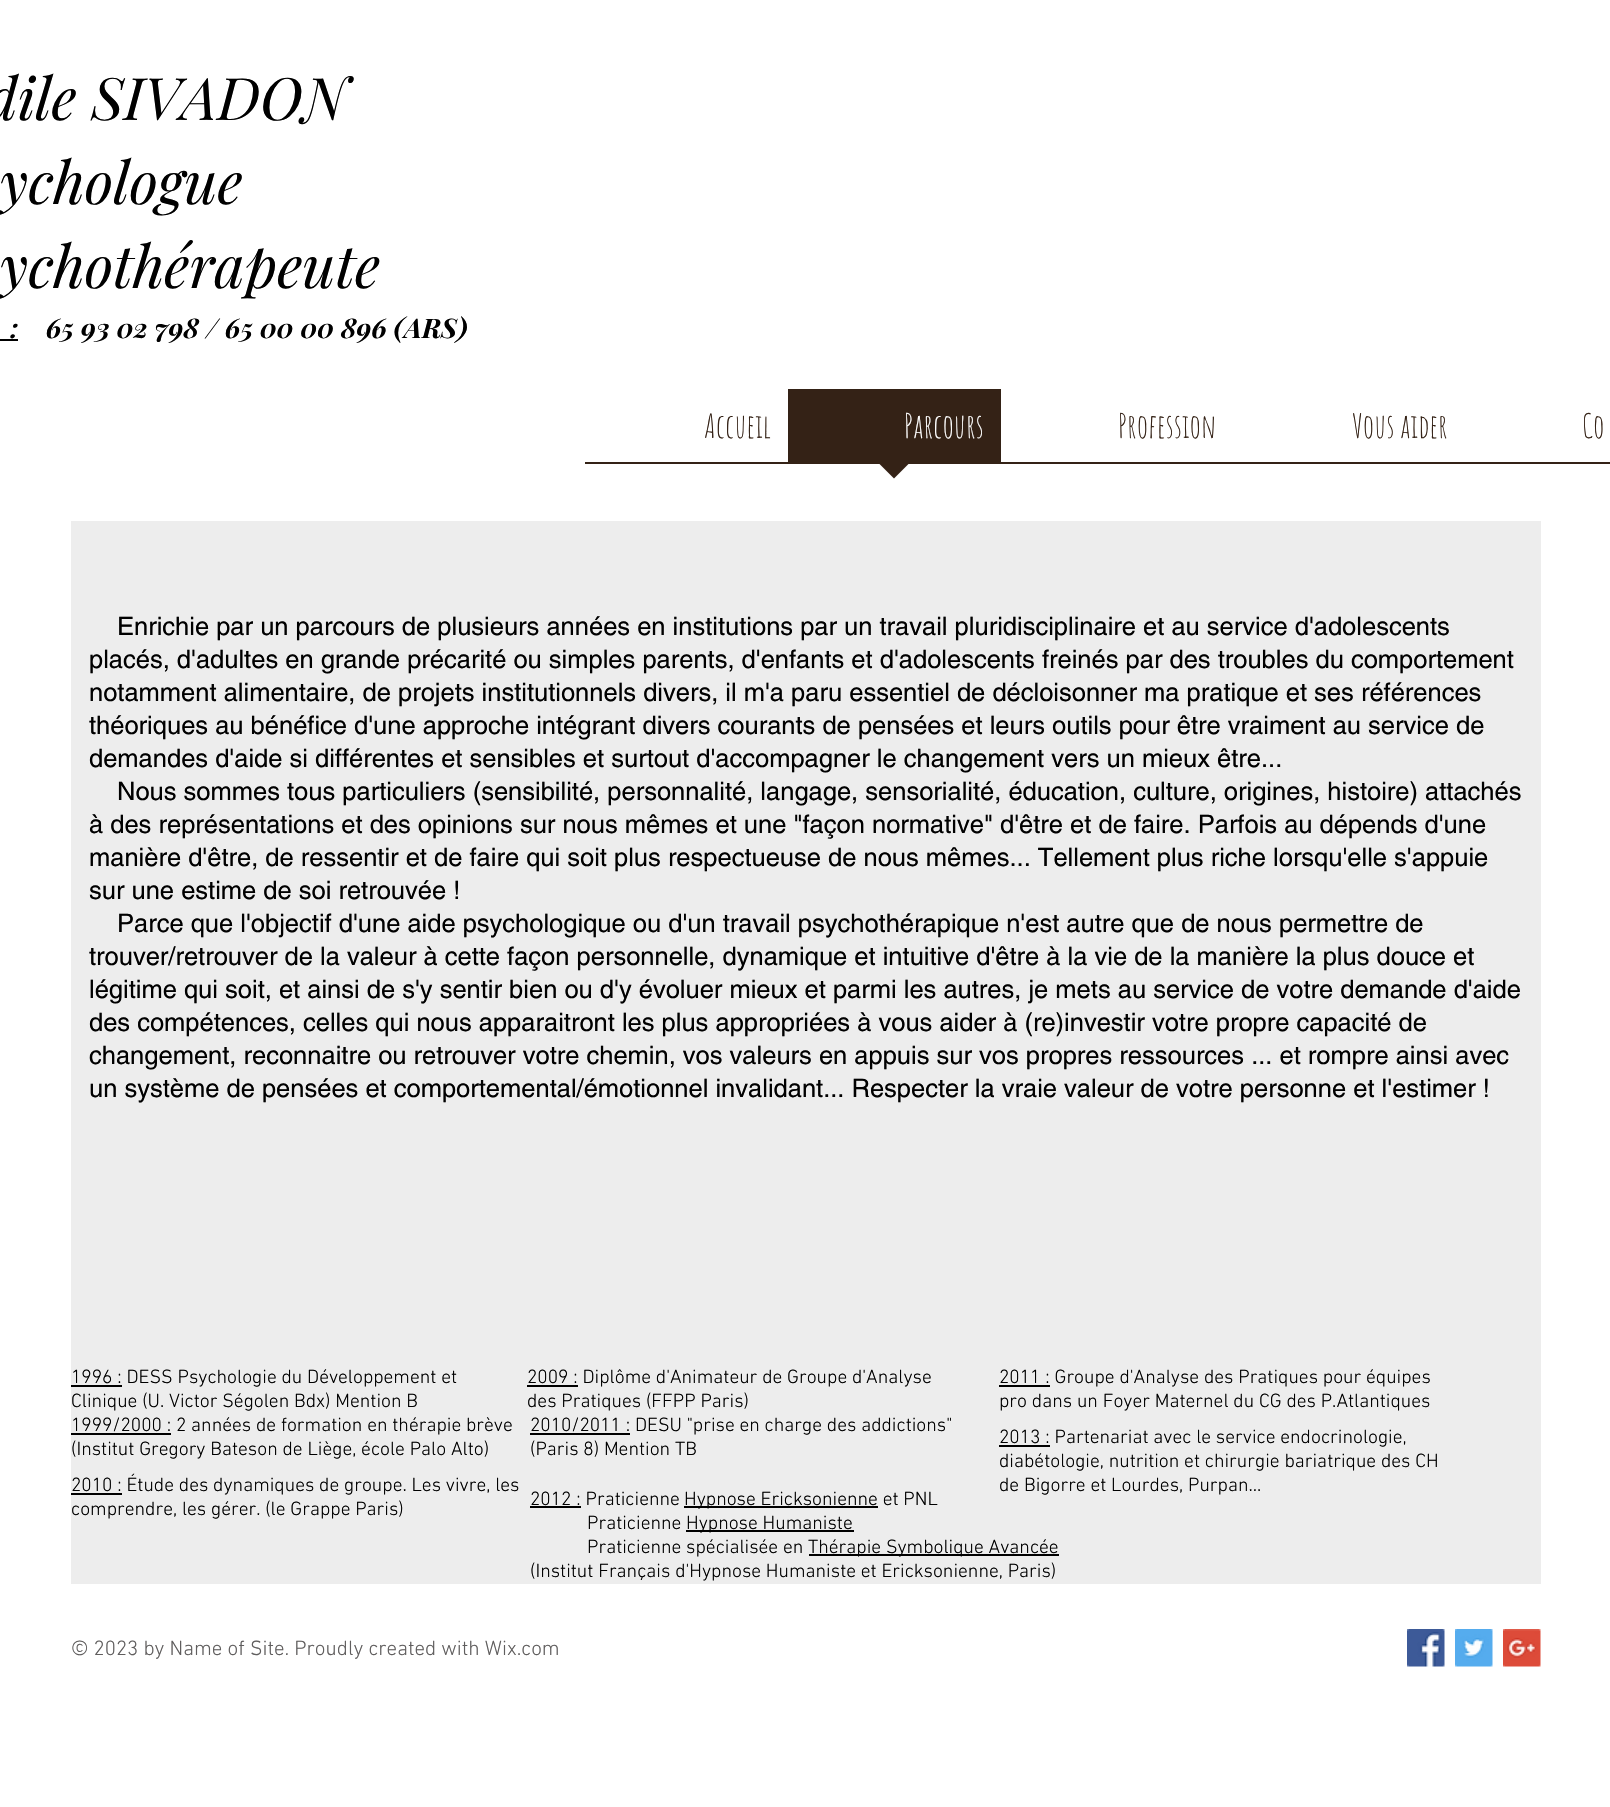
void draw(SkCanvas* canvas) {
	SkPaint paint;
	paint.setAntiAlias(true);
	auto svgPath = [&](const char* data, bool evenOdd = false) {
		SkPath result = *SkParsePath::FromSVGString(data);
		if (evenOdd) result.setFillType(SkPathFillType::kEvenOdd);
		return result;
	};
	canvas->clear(0xffffffff);
	SkFont f1(fontMgr->matchFamilyStyle("Playfair Display", SkFontStyle::Italic()), 58.5);
	f1.setSubpixel(true);
	paint.setColor(0xff000000);
	canvas->drawString("dile SIVADON", -14, 120, f1, paint);
	canvas->drawString("ychologue", 0, 204, f1, paint);
	canvas->drawString("ychothérapeute", 0, 288, f1, paint);
	SkFont f2(fontMgr->matchFamilyStyle("Playfair Display", SkFontStyle::BoldItalic()), 27);
	f2.setSubpixel(true);
	canvas->drawString(":", 10, 338, f2, paint);
	canvas->drawRect(SkRect::MakeXYWH(0, 339, 18, 2), paint);
	canvas->drawString("65 93 02 798 / 65 00 00 896 (ARS)", 46, 338, f2, paint);
	SkFont f3(fontMgr->matchFamilyStyle("Amatic SC", SkFontStyle::Normal()), 33);
	f3.setSubpixel(true);
	paint.setColor(0xff342216);
	canvas->drawString("Accueil", 704, 438, f3, paint);
	canvas->drawRect(SkRect::MakeXYWH(788, 389, 213, 73), paint);
	paint.setColor(0xffffffff);
	canvas->drawString("Parcours", 904, 438, f3, paint);
	paint.setColor(0xff342216);
	canvas->drawRect(SkRect::MakeXYWH(585, 462, 1025, 2), paint);
	canvas->drawPath(svgPath("M877.5 462H910.5L894 478.5Z"), paint);
	canvas->drawString("Profession", 1118, 438, f3, paint);
	canvas->drawString("Vous aider", 1352, 438, f3, paint);
	canvas->drawString("Co", 1582, 438, f3, paint);
	paint.setColor(0xffededed);
	canvas->drawRect(SkRect::MakeXYWH(71, 521, 1470, 1063), paint);
	SkFont f4(fontMgr->matchFamilyStyle("helvetica", SkFontStyle::Normal()), 25.5);
	f4.setSubpixel(true);
	paint.setColor(0xff000000);
	canvas->drawString("Enrichie par un parcours de plusieurs années en institutions par un travail pluridisciplinaire et au service d'adolescents", 117, 635, f4, paint);
	canvas->drawString("placés, d'adultes en grande précarité ou simples parents, d'enfants et d'adolescents freinés par des troubles du comportement", 89, 668, f4, paint);
	canvas->drawString("notamment alimentaire, de projets institutionnels divers, il m'a paru essentiel de décloisonner ma pratique et ses références", 89, 701, f4, paint);
	canvas->drawString("théoriques au bénéfice d'une approche intégrant divers courants de pensées et leurs outils pour être vraiment au service de", 89, 734, f4, paint);
	canvas->drawString("demandes d'aide si différentes et sensibles et surtout d'accompagner le changement vers un mieux être...", 89, 767, f4, paint);
	canvas->drawString("Nous sommes tous particuliers (sensibilité, personnalité, langage, sensorialité, éducation, culture, origines, histoire) attachés", 117, 800, f4, paint);
	canvas->drawString("à des représentations et des opinions sur nous mêmes et une \"façon normative\" d'être et de faire. Parfois au dépends d'une", 89, 833, f4, paint);
	canvas->drawString("manière d'être, de ressentir et de faire qui soit plus respectueuse de nous mêmes... Tellement plus riche lorsqu'elle s'appuie", 89, 866, f4, paint);
	canvas->drawString("sur une estime de soi retrouvée !", 89, 899, f4, paint);
	canvas->drawString("Parce que l'objectif d'une aide psychologique ou d'un travail psychothérapique n'est autre que de nous permettre de", 117, 932, f4, paint);
	canvas->drawString("trouver/retrouver de la valeur à cette façon personnelle, dynamique et intuitive d'être à la vie de la manière la plus douce et", 89, 965, f4, paint);
	canvas->drawString("légitime qui soit, et ainsi de s'y sentir bien ou d'y évoluer mieux et parmi les autres, je mets au service de votre demande d'aide", 89, 998, f4, paint);
	canvas->drawString("des compétences, celles qui nous apparaitront les plus appropriées à vous aider à (re)investir votre propre capacité de", 89, 1031, f4, paint);
	canvas->drawString("changement, reconnaitre ou retrouver votre chemin, vos valeurs en appuis sur vos propres ressources ... et rompre ainsi avec", 89, 1064, f4, paint);
	canvas->drawString("un système de pensées et comportemental/émotionnel invalidant... Respecter la vraie valeur de votre personne et l'estimer !", 89, 1097, f4, paint);
	canvas->drawRect(SkRect::MakeXYWH(71, 1385, 51, 2), paint);
	SkFont f5(fontMgr->matchFamilyStyle("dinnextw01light", SkFontStyle(300, SkFontStyle::kNormal_Width, SkFontStyle::kUpright_Slant)), 19.5);
	f5.setSubpixel(true);
	canvas->drawString("1996 : DESS Psychologie du Développement et", 71, 1383, f5, paint);
	canvas->drawString("Clinique (U. Victor Ségolen Bdx) Mention B", 71, 1407, f5, paint);
	canvas->drawRect(SkRect::MakeXYWH(527, 1385, 51, 2), paint);
	canvas->drawString("2009 : Diplôme d'Animateur de Groupe d'Analyse", 527, 1383, f5, paint);
	canvas->drawString("des Pratiques (FFPP Paris)", 527, 1407, f5, paint);
	canvas->drawRect(SkRect::MakeXYWH(999, 1385, 51, 2), paint);
	canvas->drawString("2011 : Groupe d'Analyse des Pratiques pour équipes", 999, 1383, f5, paint);
	canvas->drawString("pro dans un Foyer Maternel du CG des P.Atlantiques", 999, 1407, f5, paint);
	canvas->drawRect(SkRect::MakeXYWH(71, 1433, 100, 2), paint);
	canvas->drawString("1999/2000 : 2 années de formation en thérapie brève", 71, 1431, f5, paint);
	canvas->drawString("(Institut Gregory Bateson de Liège, école Palo Alto)", 71, 1455, f5, paint);
	canvas->drawRect(SkRect::MakeXYWH(530, 1433, 100, 2), paint);
	canvas->drawString("2010/2011 : DESU \"prise en charge des addictions\"", 530, 1431, f5, paint);
	canvas->drawString("(Paris 8) Mention TB", 530, 1455, f5, paint);
	canvas->drawRect(SkRect::MakeXYWH(999, 1445, 51, 2), paint);
	canvas->drawString("2013 : Partenariat avec le service endocrinologie,", 999, 1443, f5, paint);
	canvas->drawString("diabétologie, nutrition et chirurgie bariatrique des CH", 999, 1467, f5, paint);
	canvas->drawString("de Bigorre et Lourdes, Purpan...", 999, 1491, f5, paint);
	canvas->drawRect(SkRect::MakeXYWH(71, 1493, 51, 2), paint);
	canvas->drawString("2010 : Étude des dynamiques de groupe. Les vivre, les", 71, 1491, f5, paint);
	canvas->drawString("comprendre, les gérer. (le Grappe Paris)", 71, 1515, f5, paint);
	canvas->drawString("2012 : Praticienne", 530, 1505, f5, paint);
	canvas->drawRect(SkRect::MakeXYWH(530, 1506, 51, 2), paint);
	canvas->drawRect(SkRect::MakeXYWH(684, 1506, 194, 2), paint);
	canvas->drawString("Hypnose Ericksonienne et PNL", 684, 1505, f5, paint);
	canvas->drawString("Praticienne", 587, 1529, f5, paint);
	canvas->drawRect(SkRect::MakeXYWH(686, 1530, 168, 2), paint);
	canvas->drawString("Hypnose Humaniste", 686, 1529, f5, paint);
	canvas->drawString("Praticienne spécialisée en", 587, 1553, f5, paint);
	canvas->drawRect(SkRect::MakeXYWH(809, 1554, 250, 2), paint);
	canvas->drawString("Thérapie Symbolique Avancée", 808, 1553, f5, paint);
	canvas->drawString("(Institut Français d'Hypnose Humaniste et Ericksonienne, Paris)", 530, 1577, f5, paint);
	SkFont f6(fontMgr->matchFamilyStyle("dinnextw01light", SkFontStyle(300, SkFontStyle::kNormal_Width, SkFontStyle::kUpright_Slant)), 21);
	f6.setSubpixel(true);
	paint.setColor(0xff605e5e);
	canvas->drawString("© 2023 by Name of Site. Proudly created with Wix.com", 71, 1655, f6, paint);
	canvas->drawImageRect(SkImages::DeferredFromEncodedData(SkData::MakeFromFileName("img1.png")), SkRect::MakeXYWH(1407, 1629, 38, 38), SkSamplingOptions());
	canvas->drawImageRect(SkImages::DeferredFromEncodedData(SkData::MakeFromFileName("img2.png")), SkRect::MakeXYWH(1455, 1629, 38, 38), SkSamplingOptions());
	canvas->drawImageRect(SkImages::DeferredFromEncodedData(SkData::MakeFromFileName("img3.png")), SkRect::MakeXYWH(1503, 1629, 38, 38), SkSamplingOptions());
}
